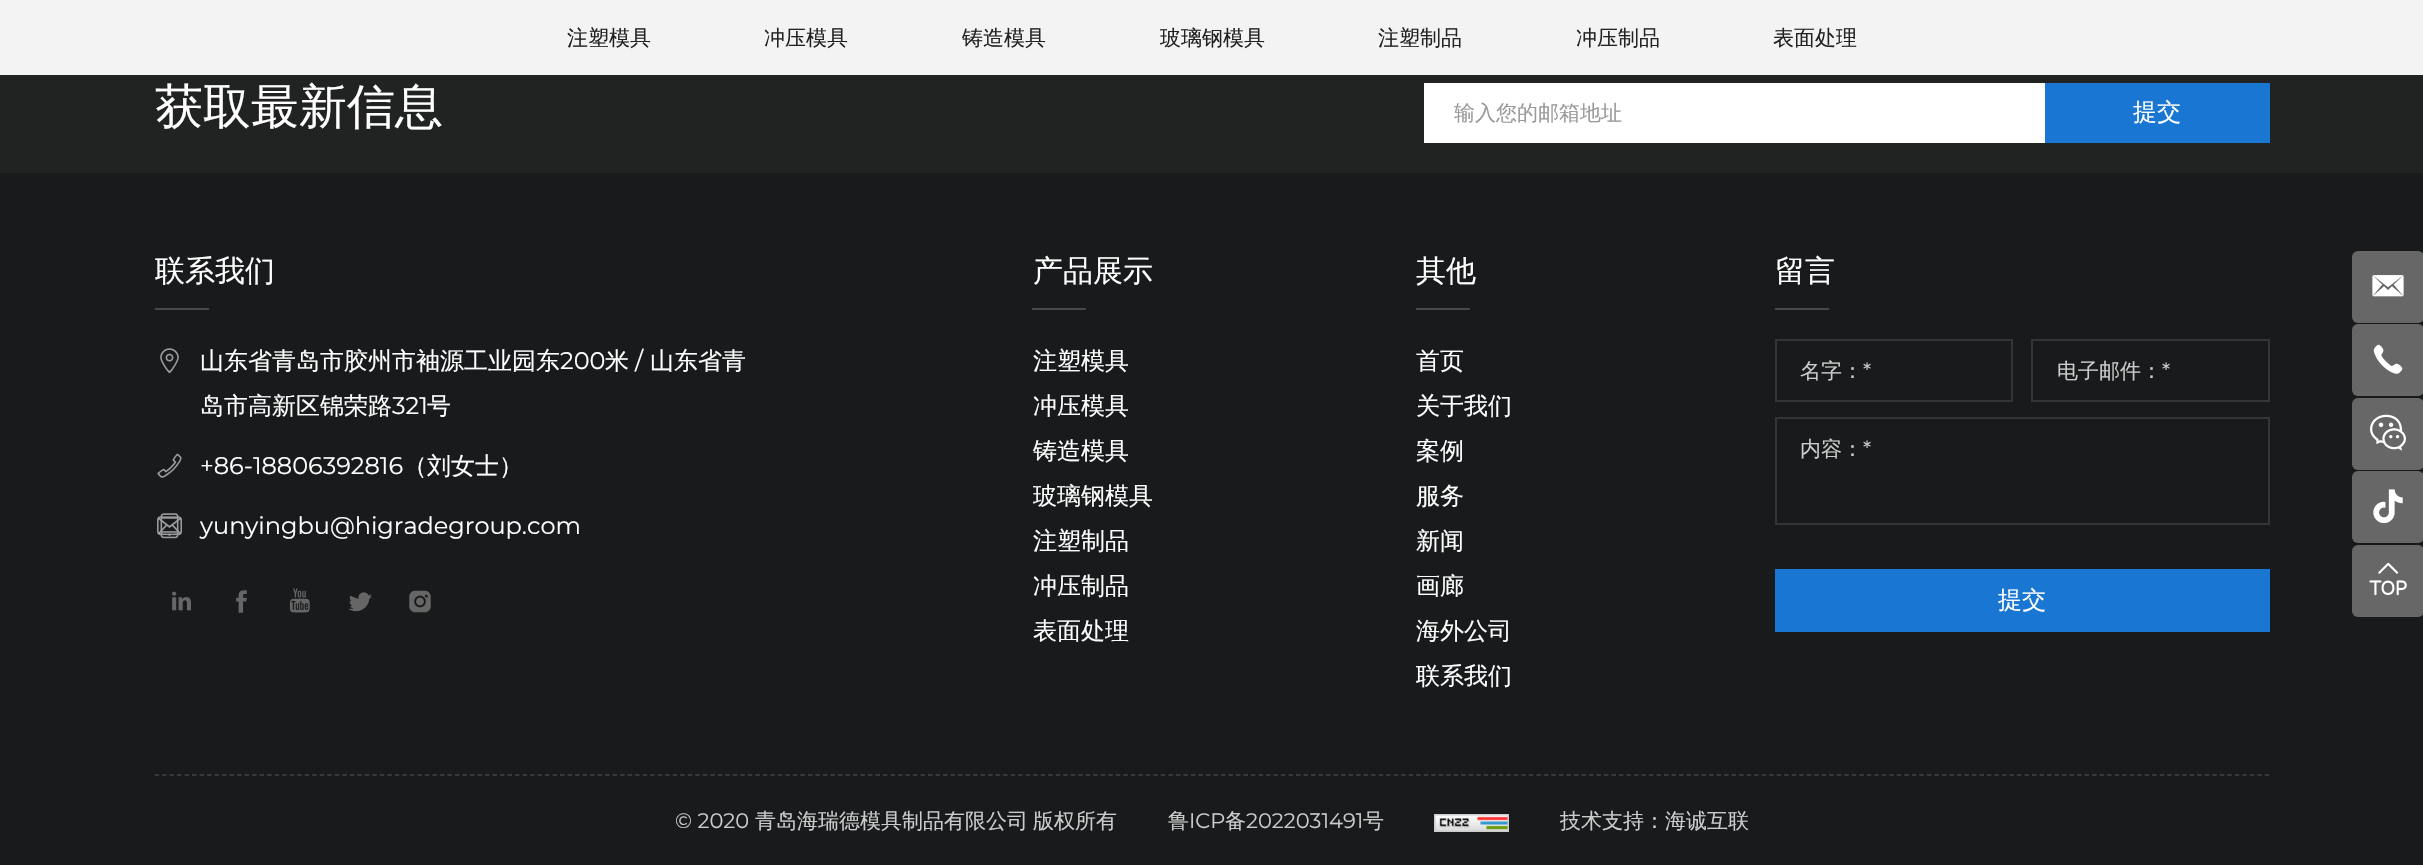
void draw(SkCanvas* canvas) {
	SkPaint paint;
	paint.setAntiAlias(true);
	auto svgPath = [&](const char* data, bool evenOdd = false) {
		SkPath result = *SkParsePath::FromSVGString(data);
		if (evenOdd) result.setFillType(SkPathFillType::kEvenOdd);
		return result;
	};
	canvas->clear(0xff212222);
	paint.setColor(0xfff3f3f3);
	canvas->drawRect(SkRect::MakeXYWH(0, 0, 2423, 75), paint);
	SkFont f1(fontMgr->matchFamilyStyle("WenQuanYi Zen Hei", SkFontStyle(500, SkFontStyle::kNormal_Width, SkFontStyle::kUpright_Slant)), 21);
	f1.setSubpixel(true);
	paint.setColor(0xff222222);
	canvas->drawString("注塑模具", 567, 45, f1, paint);
	canvas->drawString("冲压模具", 764, 45, f1, paint);
	canvas->drawString("铸造模具", 962, 45, f1, paint);
	canvas->drawString("玻璃钢模具", 1160, 45, f1, paint);
	canvas->drawString("注塑制品", 1378, 45, f1, paint);
	canvas->drawString("冲压制品", 1576, 45, f1, paint);
	canvas->drawString("表面处理", 1773, 45, f1, paint);
	SkFont f2(fontMgr->matchFamilyStyle("WenQuanYi Zen Hei", SkFontStyle(500, SkFontStyle::kNormal_Width, SkFontStyle::kUpright_Slant)), 48);
	f2.setSubpixel(true);
	paint.setColor(0xffffffff);
	canvas->drawString("获取最新信息", 155, 123, f2, paint);
	canvas->drawRect(SkRect::MakeXYWH(1424, 83, 621, 60), paint);
	canvas->save();
	canvas->clipRect(SkRect::MakeXYWH(1454, 99, 561, 29));
	paint.setColor(0xff999999);
	canvas->drawString("输入您的邮箱地址", 1454, 120, f1, paint);
	canvas->restore();
	paint.setColor(0xff1976d2);
	canvas->drawRect(SkRect::MakeXYWH(2045, 83, 225, 60), paint);
	SkFont f3(fontMgr->matchFamilyStyle("WenQuanYi Zen Hei", SkFontStyle(500, SkFontStyle::kNormal_Width, SkFontStyle::kUpright_Slant)), 24);
	f3.setSubpixel(true);
	paint.setColor(0xffffffff);
	canvas->drawString("提交", 2133, 120, f3, paint);
	paint.setColor(0xff181a1b);
	canvas->drawRect(SkRect::MakeXYWH(0, 173, 2423, 692), paint);
	SkFont f4(fontMgr->matchFamilyStyle("WenQuanYi Zen Hei", SkFontStyle(500, SkFontStyle::kNormal_Width, SkFontStyle::kUpright_Slant)), 30);
	f4.setSubpixel(true);
	paint.setColor(0xffffffff);
	canvas->drawString("联系我们", 155, 281, f4, paint);
	paint.setColor(0xff464849);
	canvas->drawRect(SkRect::MakeXYWH(155, 308, 54, 2), paint);
	canvas->drawImageRect(SkImages::DeferredFromEncodedData(SkData::MakeFromFileName("img1.png")), SkRect::MakeXYWH(160, 348, 19, 26), SkSamplingOptions());
	paint.setColor(0xffffffff);
	canvas->drawString("山东省青岛市胶州市袖源工业园东", 200, 369, f3, paint);
	SkFont f5(fontMgr->matchFamilyStyle("Montserrat", SkFontStyle::Normal()), 24);
	f5.setSubpixel(true);
	canvas->drawString("200", 560, 369, f5, paint);
	canvas->drawString("米", 605, 369, f3, paint);
	canvas->drawString("/", 635, 369, f5, paint);
	canvas->drawString("山东省青", 650, 369, f3, paint);
	canvas->drawString("岛市高新区锦荣路", 200, 414, f3, paint);
	canvas->drawString("321", 392, 414, f5, paint);
	canvas->drawString("号", 427, 414, f3, paint);
	canvas->drawImageRect(SkImages::DeferredFromEncodedData(SkData::MakeFromFileName("img2.png")), SkRect::MakeXYWH(157, 453, 25, 25), SkSamplingOptions());
	canvas->drawString("+86-18806392816", 200, 474, f5, paint);
	canvas->drawString("（刘女士）", 403, 474, f3, paint);
	canvas->drawImageRect(SkImages::DeferredFromEncodedData(SkData::MakeFromFileName("img3.png")), SkRect::MakeXYWH(160, 513, 19, 26), SkSamplingOptions());
	canvas->drawImageRect(SkImages::DeferredFromEncodedData(SkData::MakeFromFileName("img4.png")), SkRect::MakeXYWH(157, 516, 25, 20), SkSamplingOptions());
	canvas->drawString("yunyingbu@higradegroup.com", 200, 534, f5, paint);
	canvas->drawImageRect(SkImages::DeferredFromEncodedData(SkData::MakeFromFileName("img5.png")), SkRect::MakeXYWH(172, 591, 19, 20), SkSamplingOptions());
	canvas->drawImageRect(SkImages::DeferredFromEncodedData(SkData::MakeFromFileName("img6.png")), SkRect::MakeXYWH(236, 590, 11, 23), SkSamplingOptions());
	canvas->drawImageRect(SkImages::DeferredFromEncodedData(SkData::MakeFromFileName("img7.png")), SkRect::MakeXYWH(289, 588, 21, 25), SkSamplingOptions());
	canvas->drawImageRect(SkImages::DeferredFromEncodedData(SkData::MakeFromFileName("img8.png")), SkRect::MakeXYWH(348, 592, 24, 20), SkSamplingOptions());
	canvas->drawImageRect(SkImages::DeferredFromEncodedData(SkData::MakeFromFileName("img9.png")), SkRect::MakeXYWH(409, 590, 22, 23), SkSamplingOptions());
	canvas->drawString("产品展示", 1033, 281, f4, paint);
	paint.setColor(0xff464849);
	canvas->drawRect(SkRect::MakeXYWH(1032, 308, 54, 2), paint);
	paint.setColor(0xffffffff);
	canvas->drawString("注塑模具", 1033, 369, f3, paint);
	canvas->drawString("冲压模具", 1033, 414, f3, paint);
	canvas->drawString("铸造模具", 1033, 459, f3, paint);
	canvas->drawString("玻璃钢模具", 1033, 504, f3, paint);
	canvas->drawString("注塑制品", 1033, 549, f3, paint);
	canvas->drawString("冲压制品", 1033, 594, f3, paint);
	canvas->drawString("表面处理", 1033, 639, f3, paint);
	canvas->drawString("其他", 1416, 281, f4, paint);
	paint.setColor(0xff464849);
	canvas->drawRect(SkRect::MakeXYWH(1416, 308, 54, 2), paint);
	paint.setColor(0xffffffff);
	canvas->drawString("首页", 1416, 369, f3, paint);
	canvas->drawString("关于我们", 1416, 414, f3, paint);
	canvas->drawString("案例", 1416, 459, f3, paint);
	canvas->drawString("服务", 1416, 504, f3, paint);
	canvas->drawString("新闻", 1416, 549, f3, paint);
	canvas->drawString("画廊", 1416, 594, f3, paint);
	canvas->drawString("海外公司", 1416, 639, f3, paint);
	canvas->drawString("联系我们", 1416, 684, f3, paint);
	canvas->drawString("留言", 1775, 281, f4, paint);
	paint.setColor(0xff464849);
	canvas->drawRect(SkRect::MakeXYWH(1775, 308, 54, 2), paint);
	paint.setStroke(true);
	paint.setStrokeWidth(2);
	paint.setColor(0xff353535);
	canvas->drawRect(SkRect::MakeXYWH(1776, 340, 236, 61), paint);
	paint.setStroke(false);
	paint.setColor(0xffcccccc);
	canvas->drawString("名字：", 1800, 378, f1, paint);
	SkFont f6(fontMgr->matchFamilyStyle("Montserrat", SkFontStyle::Normal()), 21);
	f6.setSubpixel(true);
	canvas->drawString("*", 1863, 378, f6, paint);
	paint.setStroke(true);
	paint.setColor(0xff353535);
	canvas->drawRect(SkRect::MakeXYWH(2032, 340, 237, 61), paint);
	paint.setStroke(false);
	paint.setColor(0xffcccccc);
	canvas->drawString("电子邮件：", 2057, 378, f1, paint);
	canvas->drawString("*", 2162, 378, f6, paint);
	paint.setStroke(true);
	paint.setColor(0xff353535);
	canvas->drawRect(SkRect::MakeXYWH(1776, 418, 493, 106), paint);
	paint.setStroke(false);
	paint.setColor(0xffcccccc);
	canvas->drawString("内容：", 1800, 456, f1, paint);
	canvas->drawString("*", 1863, 456, f6, paint);
	paint.setColor(0xff1976d2);
	canvas->drawRect(SkRect::MakeXYWH(1775, 569, 495, 63), paint);
	paint.setColor(0xffffffff);
	canvas->drawString("提交", 1998, 608, f3, paint);
	paint.setStroke(true);
	paint.setStrokeWidth(1.5);
	paint.setColor(0xff424343);
	paint.setPathEffect(SkDashPathEffect::Make({{4.5f, 3.01f}}, 0));
	canvas->drawPath(svgPath("M154.5 775H2269.5"), paint);
	paint.setPathEffect(nullptr);
	paint.setStroke(false);
	paint.setColor(0xffcccccc);
	canvas->drawString("© 2020", 675, 828, f6, paint);
	canvas->drawString("青岛海瑞德模具制品有限公司", 755, 828, f1, paint);
	canvas->drawString("版权所有", 1033, 828, f1, paint);
	canvas->drawString("鲁", 1168, 828, f1, paint);
	canvas->drawString("ICP", 1189, 828, f6, paint);
	canvas->drawString("备", 1225, 828, f1, paint);
	canvas->drawString("2022031491", 1246, 828, f6, paint);
	canvas->drawString("号", 1363, 828, f1, paint);
	canvas->drawImageRect(SkImages::DeferredFromEncodedData(SkData::MakeFromFileName("img10.png")), SkRect::MakeXYWH(1434, 814, 75, 18), SkSamplingOptions());
	canvas->drawString("技术支持：海诚互联", 1560, 828, f1, paint);
	paint.setColor(0xff676767);
	canvas->drawRoundRect(SkRect::MakeXYWH(2352, 251, 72, 72), 6, 6, paint);
	canvas->drawImageRect(SkImages::DeferredFromEncodedData(SkData::MakeFromFileName("img11.png")), SkRect::MakeXYWH(2372, 275, 32, 22), SkSamplingOptions());
	canvas->drawRoundRect(SkRect::MakeXYWH(2352, 324, 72, 72), 6, 6, paint);
	canvas->drawImageRect(SkImages::DeferredFromEncodedData(SkData::MakeFromFileName("img12.png")), SkRect::MakeXYWH(2373, 344, 30, 30), SkSamplingOptions());
	canvas->drawRoundRect(SkRect::MakeXYWH(2352, 398, 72, 72), 6, 6, paint);
	canvas->drawImageRect(SkImages::DeferredFromEncodedData(SkData::MakeFromFileName("img13.png")), SkRect::MakeXYWH(2370, 414, 36, 37), SkSamplingOptions());
	canvas->drawRoundRect(SkRect::MakeXYWH(2352, 471, 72, 72), 6, 6, paint);
	canvas->drawImageRect(SkImages::DeferredFromEncodedData(SkData::MakeFromFileName("img14.png")), SkRect::MakeXYWH(2373, 489, 30, 35), SkSamplingOptions());
	canvas->drawRoundRect(SkRect::MakeXYWH(2352, 545, 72, 72), 6, 6, paint);
	canvas->drawImageRect(SkImages::DeferredFromEncodedData(SkData::MakeFromFileName("img15.png")), SkRect::MakeXYWH(2369, 562, 38, 34), SkSamplingOptions());
}
